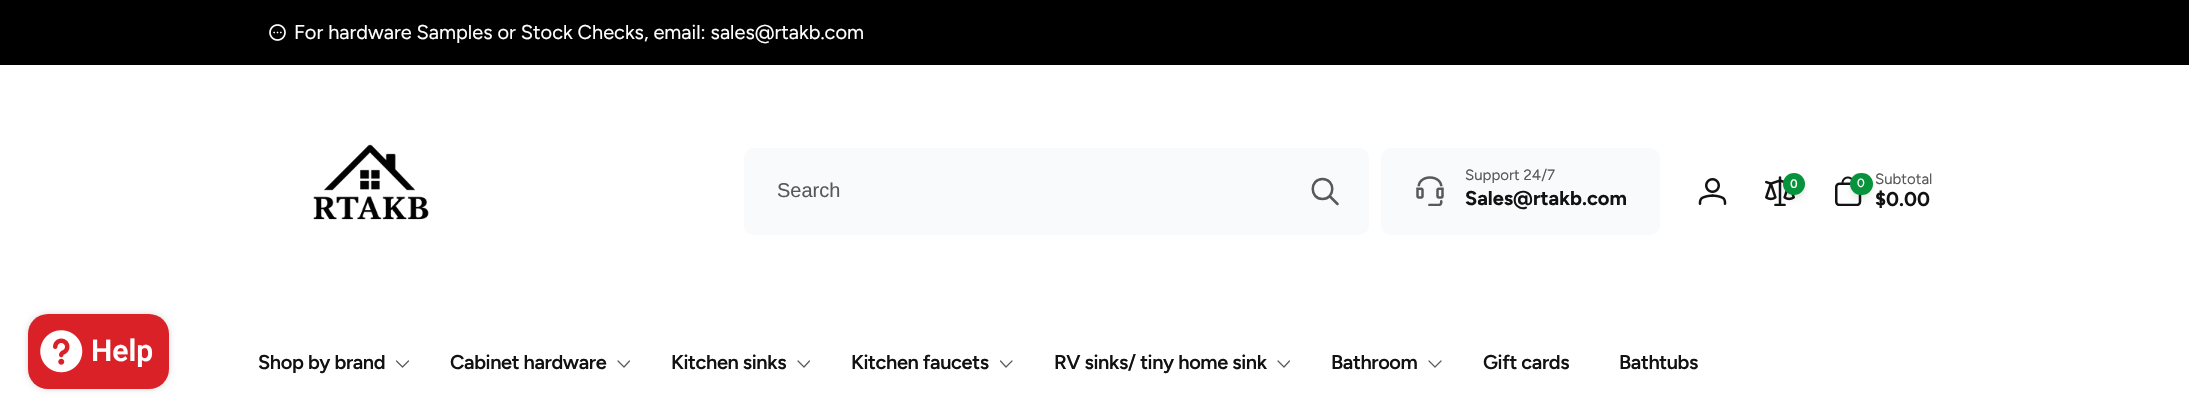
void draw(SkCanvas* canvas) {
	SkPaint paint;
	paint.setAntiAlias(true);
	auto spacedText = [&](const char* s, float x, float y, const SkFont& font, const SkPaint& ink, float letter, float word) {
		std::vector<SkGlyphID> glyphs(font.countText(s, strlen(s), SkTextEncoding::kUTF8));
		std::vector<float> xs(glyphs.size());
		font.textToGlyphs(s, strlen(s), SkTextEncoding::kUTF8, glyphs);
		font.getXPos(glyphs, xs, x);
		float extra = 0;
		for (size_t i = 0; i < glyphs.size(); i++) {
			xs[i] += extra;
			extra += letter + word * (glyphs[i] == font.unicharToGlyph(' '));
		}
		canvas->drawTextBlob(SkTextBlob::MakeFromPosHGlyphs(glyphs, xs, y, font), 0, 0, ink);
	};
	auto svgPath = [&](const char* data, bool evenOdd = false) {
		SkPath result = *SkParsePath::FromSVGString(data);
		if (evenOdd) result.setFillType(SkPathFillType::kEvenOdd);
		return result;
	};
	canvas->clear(0xffffffff);
	paint.setColor(0x26000000);
	paint.setMaskFilter(SkMaskFilter::MakeBlur(kNormal_SkBlurStyle, 3));
	canvas->drawRoundRect(SkRect::MakeXYWH(28, 314, 141, 75), 20, 20, paint);
	paint.setMaskFilter(nullptr);
	paint.setColor(0xffda2127);
	canvas->drawRoundRect(SkRect::MakeXYWH(28, 314, 141, 75), 20, 20, paint);
	canvas->drawImageRect(SkImages::DeferredFromEncodedData(SkData::MakeFromFileName("img1.png")), SkRect::MakeXYWH(40, 330, 43, 43), SkSamplingOptions());
	SkFont f1(fontMgr->matchFamilyStyle("Roboto", SkFontStyle(600, SkFontStyle::kNormal_Width, SkFontStyle::kUpright_Slant)), 30);
	f1.setSubpixel(true);
	paint.setColor(0xffffffff);
	canvas->drawString("Help", 91, 361, f1, paint);
	paint.setColor(0xff000000);
	canvas->drawRect(SkRect::MakeXYWH(0, 0, 2189, 65), paint);
	canvas->drawImageRect(SkImages::DeferredFromEncodedData(SkData::MakeFromFileName("img2.png")), SkRect::MakeXYWH(269, 24, 17, 17), SkSamplingOptions());
	SkFont f2(fontMgr->matchFamilyStyle("Figtree", SkFontStyle::Normal()), 20);
	f2.setSubpixel(true);
	paint.setColor(0xffffffff);
	canvas->drawString("For hardware Samples or Stock Checks, email: sales@rtakb.com", 294, 39, f2, paint);
	canvas->drawImageRect(SkImages::DeferredFromEncodedData(SkData::MakeFromFileName("img3.png")), SkRect::MakeXYWH(313, 144, 116, 76), SkSamplingOptions());
	paint.setColor(0xfff8fafc);
	canvas->drawRoundRect(SkRect::MakeXYWH(744, 148, 625, 87), 10, 10, paint);
	SkFont f3(fontMgr->matchFamilyStyle("Liberation Sans", SkFontStyle::Normal()), 20);
	f3.setSubpixel(true);
	paint.setColor(0xff575858);
	canvas->drawString("Search", 777, 197, f3, paint);
	paint.setStroke(true);
	paint.setStrokeWidth(2.5);
	paint.setStrokeCap(SkPaint::kRound_Cap);
	paint.setStrokeJoin(SkPaint::kRound_Join);
	canvas->drawPath(svgPath("M1337.5 204L1329.5 196M1322.5 199C1335.5 199 1335.5 179 1322.5 179C1309.5 179 1309.5 199 1322.5 199Z"), paint);
	paint.setStroke(false);
	paint.setColor(0xfff8fafc);
	canvas->drawRoundRect(SkRect::MakeXYWH(1381, 148, 279, 87), 10, 10, paint);
	canvas->drawImageRect(SkImages::DeferredFromEncodedData(SkData::MakeFromFileName("img4.png")), SkRect::MakeXYWH(1416, 176, 28, 30), SkSamplingOptions());
	SkFont f4(fontMgr->matchFamilyStyle("Figtree", SkFontStyle::Normal()), 15);
	f4.setSubpixel(true);
	paint.setColor(0xff575858);
	canvas->drawString("Support 24/7", 1465, 180, f4, paint);
	SkFont f5(fontMgr->matchFamilyStyle("Figtree", SkFontStyle::Bold()), 20);
	f5.setSubpixel(true);
	paint.setColor(0xff121212);
	canvas->drawString("Sales@rtakb.com", 1465, 205, f5, paint);
	canvas->drawImageRect(SkImages::DeferredFromEncodedData(SkData::MakeFromFileName("img5.png")), SkRect::MakeXYWH(1698, 178, 29, 27), SkSamplingOptions());
	canvas->drawImageRect(SkImages::DeferredFromEncodedData(SkData::MakeFromFileName("img6.png")), SkRect::MakeXYWH(1765, 176, 30, 30), SkSamplingOptions());
	paint.setColor(0x0f121212);
	paint.setMaskFilter(SkMaskFilter::MakeBlur(kNormal_SkBlurStyle, 2.5));
	canvas->drawRoundRect(SkRect::MakeXYWH(1784, 176, 20, 20), 10, 10, paint);
	paint.setMaskFilter(nullptr);
	paint.setColor(0x1a121212);
	paint.setMaskFilter(SkMaskFilter::MakeBlur(kNormal_SkBlurStyle, 4));
	canvas->drawRoundRect(SkRect::MakeXYWH(1784, 179, 20, 20), 10, 10, paint);
	paint.setMaskFilter(nullptr);
	paint.setColor(0xff06933b);
	canvas->drawCircle(1794, 184, 11, paint);
	SkFont f6(fontMgr->matchFamilyStyle("Inter", SkFontStyle(500, SkFontStyle::kNormal_Width, SkFontStyle::kUpright_Slant)), 12);
	f6.setSubpixel(true);
	paint.setColor(0xffffffff);
	canvas->drawString("0", 1790, 188, f6, paint);
	canvas->drawImageRect(SkImages::DeferredFromEncodedData(SkData::MakeFromFileName("img7.png")), SkRect::MakeXYWH(1835, 176, 27, 30), SkSamplingOptions());
	paint.setColor(0x0f121212);
	paint.setMaskFilter(SkMaskFilter::MakeBlur(kNormal_SkBlurStyle, 2.5));
	canvas->drawRoundRect(SkRect::MakeXYWH(1851, 176, 20, 20), 10, 10, paint);
	paint.setMaskFilter(nullptr);
	paint.setColor(0x1a121212);
	paint.setMaskFilter(SkMaskFilter::MakeBlur(kNormal_SkBlurStyle, 4));
	canvas->drawRoundRect(SkRect::MakeXYWH(1851, 179, 20, 20), 10, 10, paint);
	paint.setMaskFilter(nullptr);
	paint.setColor(0xff06933b);
	canvas->drawRoundRect(SkRect::MakeXYWH(1850, 173, 23, 22), 11, 11, paint);
	SkFont f7(fontMgr->matchFamilyStyle("Figtree", SkFontStyle(500, SkFontStyle::kNormal_Width, SkFontStyle::kUpright_Slant)), 12);
	f7.setSubpixel(true);
	paint.setColor(0xffffffff);
	canvas->drawString("0", 1857, 187, f7, paint);
	paint.setColor(0xff575858);
	canvas->drawString("Subtotal", 1875, 184, f4, paint);
	paint.setColor(0xff121212);
	canvas->drawString("$0.00", 1875, 206, f5, paint);
	SkFont f8(fontMgr->matchFamilyStyle("Figtree", SkFontStyle(600, SkFontStyle::kNormal_Width, SkFontStyle::kUpright_Slant)), 20);
	f8.setSubpixel(true);
	spacedText("Shop by brand", 258, 369, f8, paint, -0.4, 0);
	paint.setStroke(true);
	paint.setStrokeWidth(1.2);
	paint.setColor(0xff595959);
	canvas->drawPath(svgPath("M408.5 361L402.5 367L396.5 361"), paint);
	paint.setStroke(false);
	paint.setColor(0xff121212);
	spacedText("Cabinet hardware", 450, 369, f8, paint, -0.4, 0);
	paint.setStroke(true);
	paint.setColor(0xff595959);
	canvas->drawPath(svgPath("M629.5 361L624 367L618 361"), paint);
	paint.setStroke(false);
	paint.setColor(0xff121212);
	spacedText("Kitchen sinks", 671, 369, f8, paint, -0.4, 0);
	paint.setStroke(true);
	paint.setColor(0xff595959);
	canvas->drawPath(svgPath("M809.5 361L804 367L798 361"), paint);
	paint.setStroke(false);
	paint.setColor(0xff121212);
	spacedText("Kitchen faucets", 851, 369, f8, paint, -0.4, 0);
	paint.setStroke(true);
	paint.setColor(0xff595959);
	canvas->drawPath(svgPath("M1012 361L1006 367L1000.5 361"), paint);
	paint.setStroke(false);
	paint.setColor(0xff121212);
	spacedText("RV sinks/ tiny home sink", 1054, 369, f8, paint, -0.4, 0);
	paint.setStroke(true);
	paint.setColor(0xff595959);
	canvas->drawPath(svgPath("M1289.5 361L1284 367L1278 361"), paint);
	paint.setStroke(false);
	paint.setColor(0xff121212);
	spacedText("Bathroom", 1331, 369, f8, paint, -0.4, 0);
	paint.setStroke(true);
	paint.setColor(0xff595959);
	canvas->drawPath(svgPath("M1441 361L1435 367L1429 361"), paint);
	paint.setStroke(false);
	paint.setColor(0xff121212);
	spacedText("Gift cards", 1483, 369, f8, paint, -0.4, 0);
	spacedText("Bathtubs", 1619, 369, f8, paint, -0.4, 0);
}
